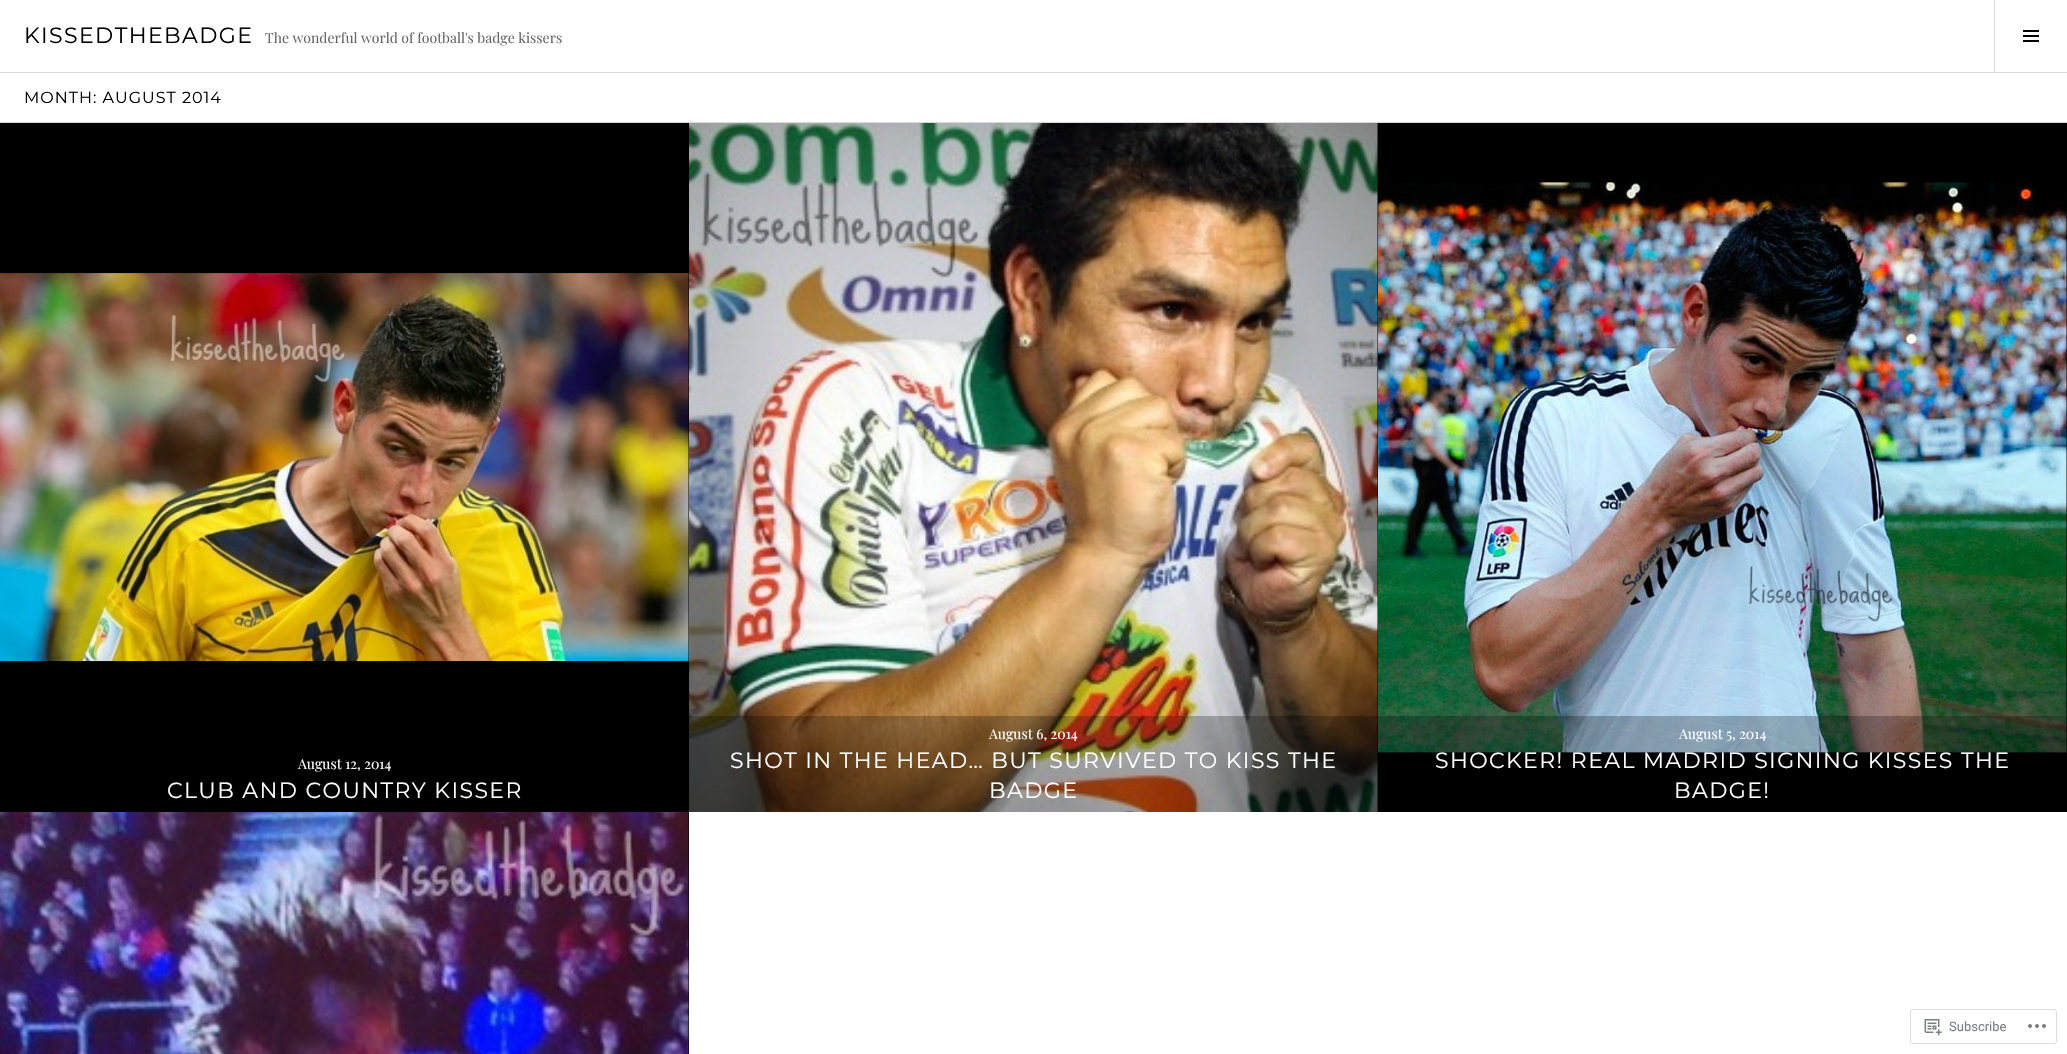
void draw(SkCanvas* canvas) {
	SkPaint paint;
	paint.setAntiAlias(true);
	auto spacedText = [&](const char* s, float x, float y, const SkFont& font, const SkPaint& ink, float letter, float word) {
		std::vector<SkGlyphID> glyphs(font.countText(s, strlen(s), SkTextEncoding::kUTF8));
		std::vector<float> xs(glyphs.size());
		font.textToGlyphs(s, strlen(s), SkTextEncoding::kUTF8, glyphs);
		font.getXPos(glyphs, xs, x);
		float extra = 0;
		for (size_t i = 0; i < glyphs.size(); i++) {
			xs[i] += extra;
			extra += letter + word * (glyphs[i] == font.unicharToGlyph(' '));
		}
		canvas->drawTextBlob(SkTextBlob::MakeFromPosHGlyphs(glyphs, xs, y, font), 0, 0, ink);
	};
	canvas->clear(0xffffffff);
	paint.setColor(0xffd9d9d9);
	canvas->drawRect(SkRect::MakeXYWH(0, 72, 2067, 1), paint);
	SkFont f1(fontMgr->matchFamilyStyle("Montserrat", SkFontStyle::Normal()), 22);
	f1.setSubpixel(true);
	paint.setColor(0xff000000);
	spacedText("KISSEDTHEBADGE", 24, 43, f1, paint, 1.4, 0);
	SkFont f2(fontMgr->matchFamilyStyle("Playfair Display", SkFontStyle::Normal()), 14);
	f2.setSubpixel(true);
	paint.setColor(0xff666666);
	canvas->drawString("The wonderful world of football's badge kissers", 265, 43, f2, paint);
	paint.setColor(0xffd9d9d9);
	canvas->drawRect(SkRect::MakeXYWH(1994, 0, 1, 72), paint);
	canvas->drawImageRect(SkImages::DeferredFromEncodedData(SkData::MakeFromFileName("img1.png")), SkRect::MakeXYWH(2023, 30, 16, 12), SkSamplingOptions());
	canvas->drawRect(SkRect::MakeXYWH(0, 122, 2067, 1), paint);
	SkFont f3(fontMgr->matchFamilyStyle("Montserrat", SkFontStyle::Normal()), 16);
	f3.setSubpixel(true);
	paint.setColor(0xff000000);
	spacedText("MONTH: AUGUST 2014", 24, 103, f3, paint, 1, 0);
	canvas->drawRect(SkRect::MakeXYWH(0, 123, 689, 689), paint);
	canvas->drawImageRect(SkImages::DeferredFromEncodedData(SkData::MakeFromFileName("img2.png")), SkRect::MakeXYWH(0, 273, 689, 389), SkSamplingOptions());
	paint.setColor(0xffffffff);
	canvas->drawString("August 12, 2014", 298, 769, f2, paint);
	spacedText("CLUB AND COUNTRY KISSER", 167, 798, f1, paint, 1.4, 0);
	paint.setColor(0xff000000);
	canvas->drawRect(SkRect::MakeXYWH(1377, 123, 690, 689), paint);
	canvas->drawImageRect(SkImages::DeferredFromEncodedData(SkData::MakeFromFileName("img3.png")), SkRect::MakeXYWH(689, 123, 689, 689), SkSamplingOptions());
	paint.setColor(0x40000000);
	canvas->drawRect(SkRect::MakeXYWH(689, 716, 689, 96), paint);
	paint.setColor(0xffffffff);
	canvas->drawString("August 6, 2014", 989, 739, f2, paint);
	spacedText("SHOT IN THE HEAD… BUT SURVIVED TO KISS THE", 730, 768, f1, paint, 1.4, 0);
	spacedText("BADGE", 989, 798, f1, paint, 1.4, 0);
	canvas->drawImageRect(SkImages::DeferredFromEncodedData(SkData::MakeFromFileName("img4.png")), SkRect::MakeXYWH(1378, 182, 689, 571), SkSamplingOptions());
	paint.setColor(0x40000000);
	canvas->drawRect(SkRect::MakeXYWH(1378, 716, 689, 37), paint);
	paint.setColor(0xffffffff);
	canvas->drawString("August 5, 2014", 1679, 739, f2, paint);
	spacedText("SHOCKER! REAL MADRID SIGNING KISSES THE", 1435, 768, f1, paint, 1.4, 0);
	spacedText("BADGE!", 1674, 798, f1, paint, 1.4, 0);
	paint.setColor(0xff000000);
	canvas->drawRect(SkRect::MakeXYWH(688, 812, 1, 242), paint);
	canvas->drawImageRect(SkImages::DeferredFromEncodedData(SkData::MakeFromFileName("img5.png")), SkRect::MakeXYWH(0, 812, 689, 242), SkSamplingOptions());
	paint.setStroke(true);
	paint.setStrokeWidth(1);
	paint.setColor(0xffdddddf);
	canvas->drawRoundRect(SkRect::MakeXYWH(1910.5, 1009.5, 146, 34), 2.5, 2.5, paint);
	canvas->drawImageRect(SkImages::DeferredFromEncodedData(SkData::MakeFromFileName("img6.png")), SkRect::MakeXYWH(1924, 1019, 18, 17), SkSamplingOptions());
	SkFont f4(fontMgr->matchFamilyStyle("Roboto", SkFontStyle::Normal()), 13);
	f4.setSubpixel(true);
	paint.setStroke(false);
	paint.setColor(0xff7b7f85);
	canvas->drawString("Subscribe", 1949, 1031, f4, paint);
	canvas->drawImageRect(SkImages::DeferredFromEncodedData(SkData::MakeFromFileName("img7.png")), SkRect::MakeXYWH(2028, 1024, 18, 4), SkSamplingOptions());
}
